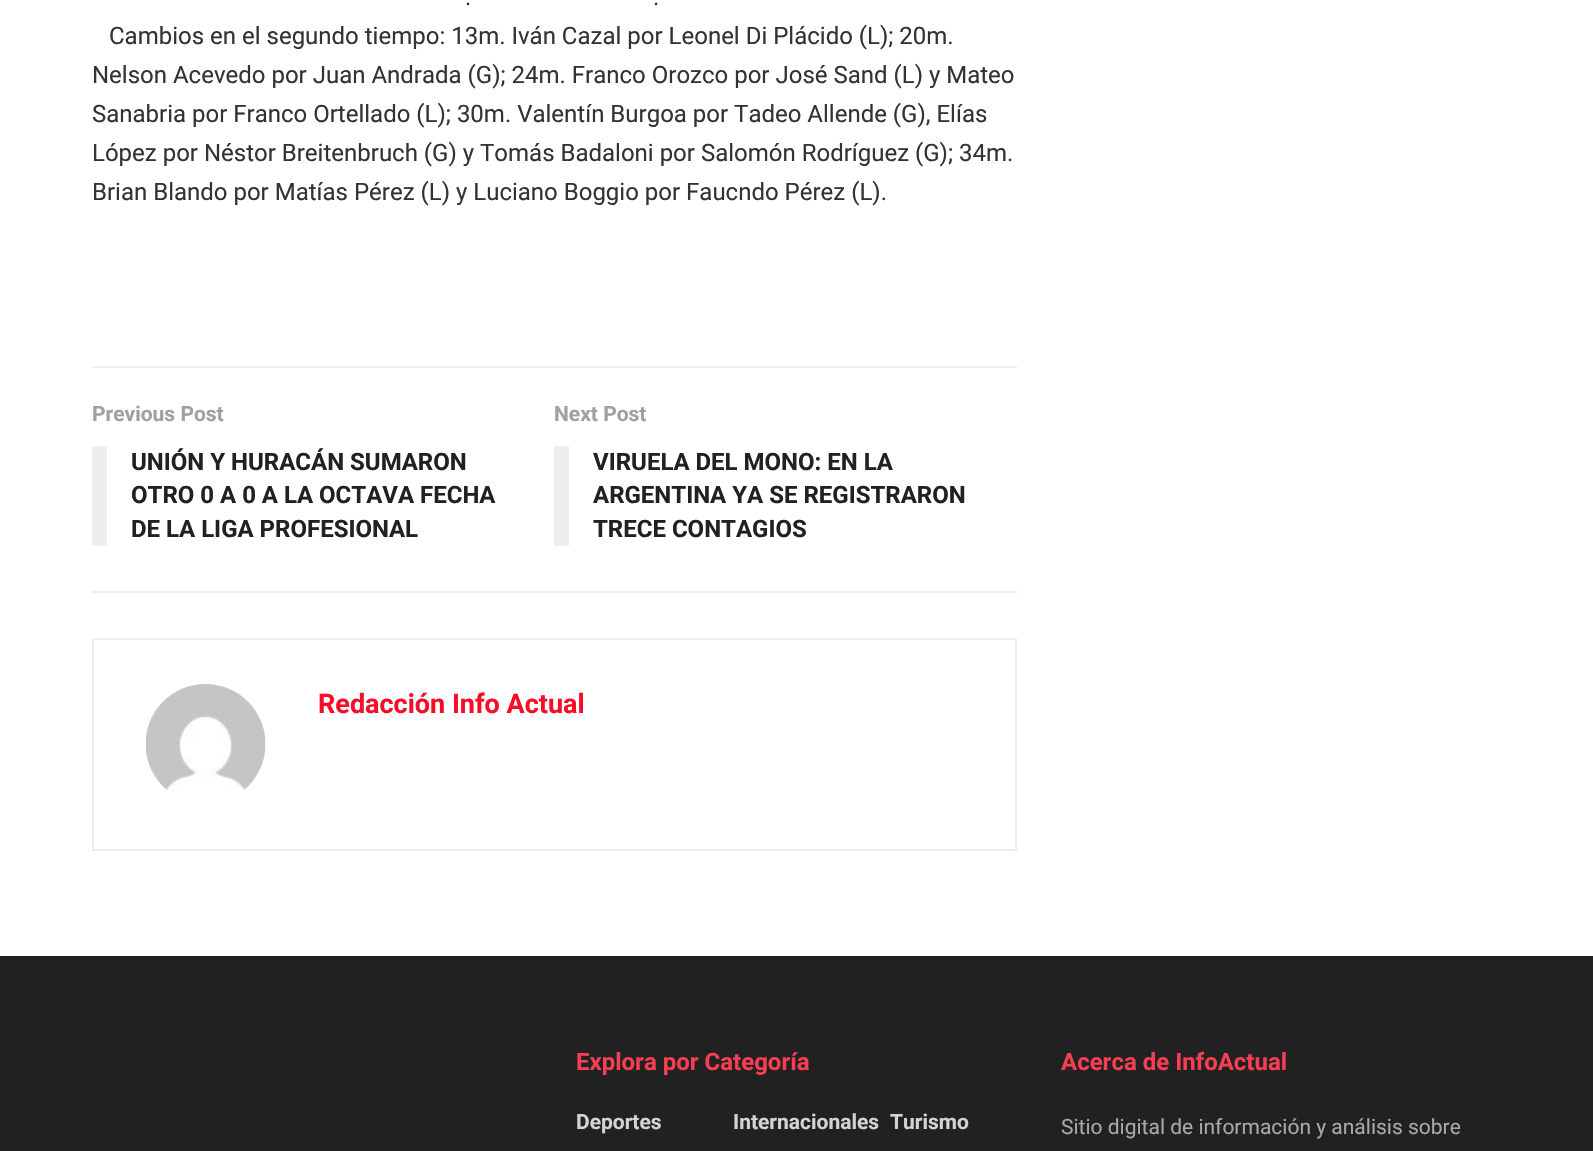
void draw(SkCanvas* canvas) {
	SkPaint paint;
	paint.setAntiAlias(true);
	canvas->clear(0xffffffff);
	SkFont f1(fontMgr->matchFamilyStyle("Roboto", SkFontStyle::Normal()), 24);
	f1.setSubpixel(true);
	paint.setColor(0xff333333);
	canvas->drawString(".", 465, 5, f1, paint);
	canvas->drawString(".", 653, 5, f1, paint);
	canvas->drawString("Cambios en el segundo tiempo: 13m. Iván Cazal por Leonel Di Plácido (L); 20m.", 109, 44, f1, paint);
	canvas->drawString("Nelson Acevedo por Juan Andrada (G); 24m. Franco Orozco por José Sand (L) y Mateo", 92, 83, f1, paint);
	canvas->drawString("Sanabria por Franco Ortellado (L); 30m. Valentín Burgoa por Tadeo Allende (G), Elías", 92, 122, f1, paint);
	canvas->drawString("López por Néstor Breitenbruch (G) y Tomás Badaloni por Salomón Rodríguez (G); 34m.", 92, 161, f1, paint);
	canvas->drawString("Brian Blando por Matías Pérez (L) y Luciano Boggio por Faucndo Pérez (L).", 92, 200, f1, paint);
	paint.setColor(0xffeeeeee);
	canvas->drawRect(SkRect::MakeXYWH(92, 366, 925, 2), paint);
	canvas->drawRect(SkRect::MakeXYWH(92, 591, 925, 2), paint);
	SkFont f2(fontMgr->matchFamilyStyle("Roboto", SkFontStyle::Bold()), 21);
	f2.setSubpixel(true);
	paint.setColor(0xffa0a0a0);
	canvas->drawString("Previous Post", 92, 421, f2, paint);
	paint.setColor(0xffeeeeee);
	canvas->drawRect(SkRect::MakeXYWH(92, 446, 15, 100), paint);
	SkFont f3(fontMgr->matchFamilyStyle("Roboto", SkFontStyle::Bold()), 24);
	f3.setSubpixel(true);
	paint.setColor(0xff212121);
	canvas->drawString("UNIÓN Y HURACÁN SUMARON", 131, 470, f3, paint);
	canvas->drawString("OTRO 0 A 0 A LA OCTAVA FECHA", 131, 503, f3, paint);
	canvas->drawString("DE LA LIGA PROFESIONAL", 131, 537, f3, paint);
	paint.setColor(0xffa0a0a0);
	canvas->drawString("Next Post", 554, 421, f2, paint);
	paint.setColor(0xffeeeeee);
	canvas->drawRect(SkRect::MakeXYWH(554, 446, 15, 100), paint);
	paint.setColor(0xff212121);
	canvas->drawString("VIRUELA DEL MONO: EN LA", 593, 470, f3, paint);
	canvas->drawString("ARGENTINA YA SE REGISTRARON", 593, 503, f3, paint);
	canvas->drawString("TRECE CONTAGIOS", 593, 537, f3, paint);
	paint.setStroke(true);
	paint.setStrokeWidth(2);
	paint.setColor(0xffeeeeee);
	canvas->drawRect(SkRect::MakeXYWH(93, 639, 923, 211), paint);
	canvas->drawImageRect(SkImages::DeferredFromEncodedData(SkData::MakeFromFileName("img1.png")), SkRect::MakeXYWH(145, 684, 121, 106), SkSamplingOptions());
	SkFont f4(fontMgr->matchFamilyStyle("Roboto", SkFontStyle::Bold()), 27);
	f4.setSubpixel(true);
	paint.setStroke(false);
	paint.setColor(0xfff70d28);
	canvas->drawString("Redacción Info Actual", 318, 713, f4, paint);
	paint.setColor(0xff212121);
	canvas->drawRect(SkRect::MakeXYWH(0, 956, 1593, 195), paint);
	paint.setColor(0xfff93d53);
	canvas->drawString("Explora por Categoría", 576, 1070, f3, paint);
	paint.setColor(0xffd3d3d3);
	canvas->drawString("Deportes", 576, 1129, f2, paint);
	canvas->drawString("Internacionales", 733, 1129, f2, paint);
	canvas->drawString("Turismo", 890, 1129, f2, paint);
	paint.setColor(0xfff93d53);
	canvas->drawString("Acerca de InfoActual", 1061, 1070, f3, paint);
	SkFont f5(fontMgr->matchFamilyStyle("Roboto", SkFontStyle::Normal()), 21);
	f5.setSubpixel(true);
	paint.setColor(0xffa8a8aa);
	canvas->drawString("Sitio digital de información y análisis sobre", 1061, 1134, f5, paint);
}
